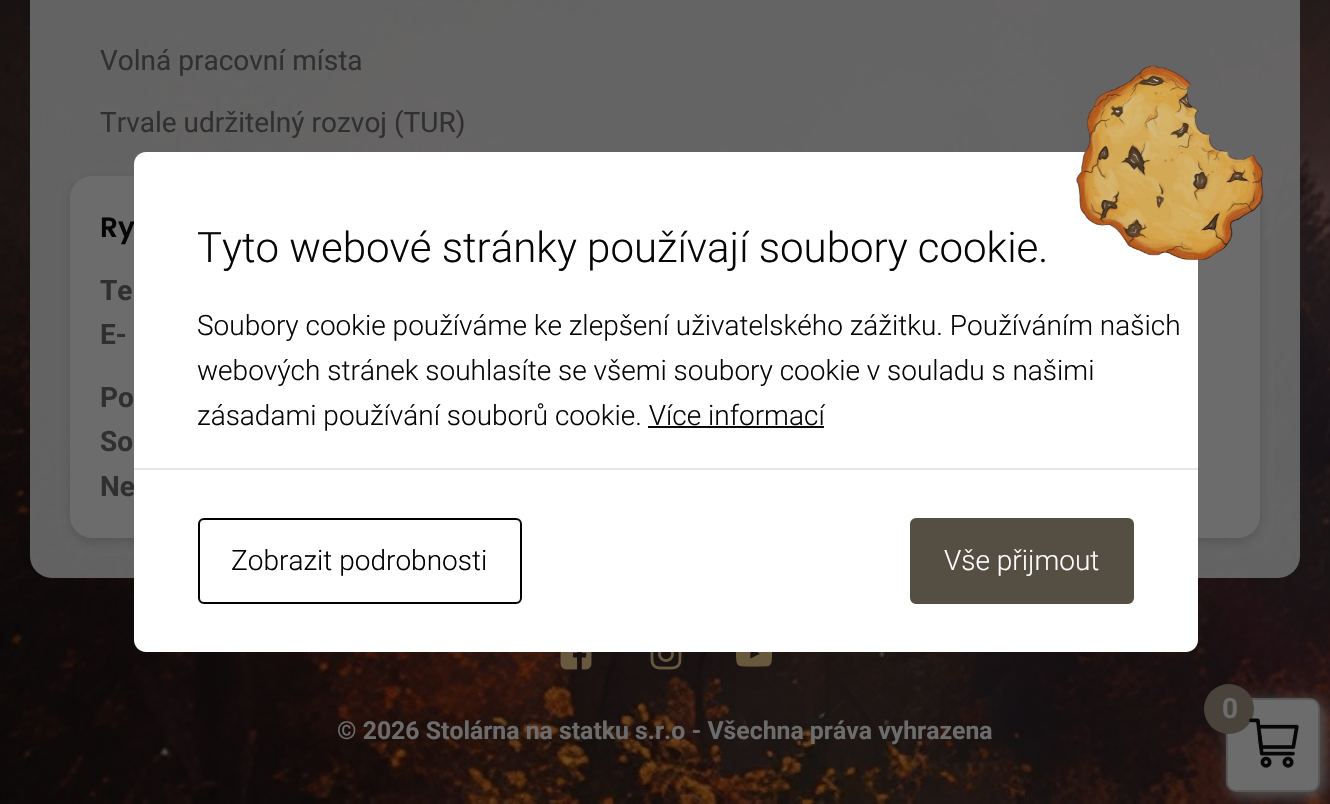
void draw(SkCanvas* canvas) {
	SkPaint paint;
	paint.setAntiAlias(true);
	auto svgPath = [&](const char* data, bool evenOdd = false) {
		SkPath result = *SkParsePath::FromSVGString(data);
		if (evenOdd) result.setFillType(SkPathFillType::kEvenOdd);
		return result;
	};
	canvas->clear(0xffffffff);
	canvas->drawImageRect(SkImages::DeferredFromEncodedData(SkData::MakeFromFileName("img1.png")), SkRect::MakeXYWH(0, 0, 1330, 804), SkSamplingOptions());
	paint.setColor(0xe66c6c6c);
	canvas->drawRoundRect(SkRect::MakeXYWH(30, -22, 1270, 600), 22, 22, paint);
	SkFont f1(fontMgr->matchFamilyStyle("Roboto", SkFontStyle::Normal()), 28);
	f1.setSubpixel(true);
	paint.setColor(0xff313030);
	canvas->drawString("Volná pracovní místa", 100, 70, f1, paint);
	canvas->drawString("Trvale udržitelný rozvoj (TUR)", 100, 132, f1, paint);
	paint.setColor(0x26060606);
	paint.setMaskFilter(SkMaskFilter::MakeBlur(kNormal_SkBlurStyle, 6));
	canvas->drawRoundRect(SkRect::MakeXYWH(70, 180, 1190, 362), 22, 22, paint);
	paint.setMaskFilter(nullptr);
	paint.setColor(0xff6c6c6c);
	canvas->drawRoundRect(SkRect::MakeXYWH(70, 176, 1190, 362), 22, 22, paint);
	SkFont f2(fontMgr->matchFamilyStyle("Poppins", SkFontStyle(600, SkFontStyle::kNormal_Width, SkFontStyle::kUpright_Slant)), 28);
	f2.setSubpixel(true);
	paint.setColor(0xff060606);
	canvas->drawString("Ry", 100, 237, f2, paint);
	SkFont f3(fontMgr->matchFamilyStyle("Roboto", SkFontStyle::Bold()), 28);
	f3.setSubpixel(true);
	paint.setColor(0xff313030);
	canvas->drawString("Te", 100, 300, f3, paint);
	canvas->drawString("E-", 100, 344, f3, paint);
	canvas->drawString("Po", 100, 407, f3, paint);
	canvas->drawString("So", 100, 451, f3, paint);
	canvas->drawString("Ne", 100, 496, f3, paint);
	paint.setColor(0x1a060606);
	canvas->drawRoundRect(SkRect::MakeXYWH(542, 618, 70, 72), 30, 30, paint);
	canvas->drawImageRect(SkImages::DeferredFromEncodedData(SkData::MakeFromFileName("img2.png")), SkRect::MakeXYWH(560, 652, 32, 18), SkSamplingOptions());
	canvas->drawRoundRect(SkRect::MakeXYWH(630, 618, 70, 72), 30, 30, paint);
	canvas->drawImageRect(SkImages::DeferredFromEncodedData(SkData::MakeFromFileName("img3.png")), SkRect::MakeXYWH(650, 652, 32, 18), SkSamplingOptions());
	canvas->drawRoundRect(SkRect::MakeXYWH(718, 618, 72, 72), 30, 30, paint);
	canvas->drawImageRect(SkImages::DeferredFromEncodedData(SkData::MakeFromFileName("img4.png")), SkRect::MakeXYWH(736, 652, 36, 15), SkSamplingOptions());
	SkFont f4(fontMgr->matchFamilyStyle("Roboto", SkFontStyle::Bold()), 24.8);
	f4.setSubpixel(true);
	paint.setColor(0xff6c6c6c);
	canvas->drawString("© 2026 Stolárna na statku s.r.o - Všechna práva vyhrazena", 337, 739, f4, paint);
	paint.setColor(0xffffffff);
	canvas->drawPath(svgPath("M146 152H1186C1192.5 152 1198 157.5 1198 164V284H134V164C134 157.5 139.5 152 146 152Z"), paint);
	SkFont f5(fontMgr->matchFamilyStyle("Roboto", SkFontStyle(300, SkFontStyle::kNormal_Width, SkFontStyle::kUpright_Slant)), 42);
	f5.setSubpixel(true);
	paint.setColor(0xff060606);
	canvas->drawString("Tyto webové stránky používají soubory cookie.", 197, 262, f5, paint);
	canvas->drawImageRect(SkImages::DeferredFromEncodedData(SkData::MakeFromFileName("img5.png")), SkRect::MakeXYWH(1076, 65, 188, 196), SkSamplingOptions());
	paint.setColor(0xffffffff);
	canvas->drawRect(SkRect::MakeXYWH(134, 284, 1064, 184), paint);
	SkFont f6(fontMgr->matchFamilyStyle("Roboto", SkFontStyle(300, SkFontStyle::kNormal_Width, SkFontStyle::kUpright_Slant)), 28);
	f6.setSubpixel(true);
	paint.setColor(0xff060606);
	canvas->drawString("Soubory cookie používáme ke zlepšení uživatelského zážitku. Používáním našich", 197, 335, f6, paint);
	canvas->drawString("webových stránek souhlasíte se všemi soubory cookie v souladu s našimi", 197, 380, f6, paint);
	canvas->drawString("zásadami používání souborů cookie. Více informací", 197, 425, f6, paint);
	paint.setColor(0xff0a0a0a);
	canvas->drawRect(SkRect::MakeXYWH(648, 426, 176, 2), paint);
	paint.setColor(0xffffffff);
	canvas->drawPath(svgPath("M134 468H1198V640C1198 646.5 1192.5 652 1186 652H146C139.5 652 134 646.5 134 640Z"), paint);
	paint.setColor(0xffe6e6e6);
	canvas->drawRect(SkRect::MakeXYWH(134, 468, 1064, 2), paint);
	paint.setStroke(true);
	paint.setStrokeWidth(2);
	paint.setColor(0xff000000);
	canvas->drawRoundRect(SkRect::MakeXYWH(199, 519, 322, 84), 5, 5, paint);
	paint.setStroke(false);
	canvas->drawString("Zobrazit podrobnosti", 231, 570, f6, paint);
	paint.setColor(0xff554e42);
	canvas->drawRoundRect(SkRect::MakeXYWH(911, 519, 222, 84), 5, 5, paint);
	paint.setStroke(true);
	canvas->drawRoundRect(SkRect::MakeXYWH(911, 519, 222, 84), 5, 5, paint);
	paint.setStroke(false);
	paint.setColor(0xffffffff);
	canvas->drawString("Vše přijmout", 944, 570, f6, paint);
	paint.setColor(0xff585858);
	paint.setMaskFilter(SkMaskFilter::MakeBlur(kNormal_SkBlurStyle, 8));
	canvas->drawRoundRect(SkRect::MakeXYWH(1230, 702, 94, 94), 10, 10, paint);
	paint.setMaskFilter(nullptr);
	paint.setColor(0xff6c6c6c);
	canvas->drawRoundRect(SkRect::MakeXYWH(1227, 699, 92, 92), 9, 9, paint);
	paint.setStroke(true);
	paint.setColor(0xff585858);
	canvas->drawRoundRect(SkRect::MakeXYWH(1227, 699, 92, 92), 9, 9, paint);
	paint.setStroke(false);
	paint.setColor(0xff4a433b);
	canvas->drawCircle(1229, 709, 25, paint);
	paint.setColor(0xff6c6c6c);
	canvas->drawString("0", 1222, 718, f3, paint);
	canvas->drawImageRect(SkImages::DeferredFromEncodedData(SkData::MakeFromFileName("img6.png")), SkRect::MakeXYWH(1249, 718, 50, 50), SkSamplingOptions());
}
